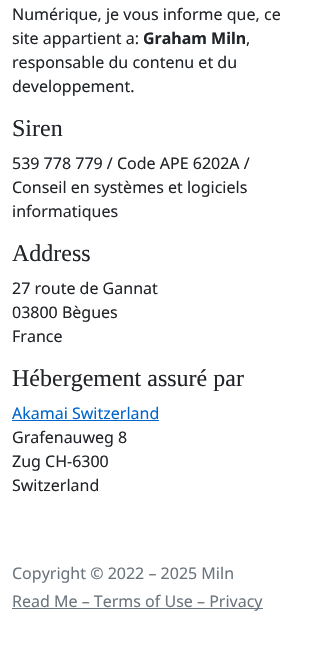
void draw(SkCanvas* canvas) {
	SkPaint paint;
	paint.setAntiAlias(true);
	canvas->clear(0xffffffff);
	SkFont f1(fontMgr->matchFamilyStyle("Noto Sans", SkFontStyle::Normal()), 16);
	f1.setSubpixel(true);
	paint.setColor(0xff212529);
	canvas->drawString("Numérique, je vous informe que, ce", 12, 20, f1, paint);
	canvas->drawString("site appartient a:", 12, 44, f1, paint);
	SkFont f2(fontMgr->matchFamilyStyle("Noto Sans", SkFontStyle::Bold()), 16);
	f2.setSubpixel(true);
	canvas->drawString("Graham Miln", 143, 44, f2, paint);
	canvas->drawString(",", 246, 44, f1, paint);
	canvas->drawString("responsable du contenu et du", 12, 68, f1, paint);
	canvas->drawString("developpement.", 12, 92, f1, paint);
	SkFont f3(fontMgr->matchFamilyStyle("Liberation Serif", SkFontStyle::Normal()), 24);
	f3.setSubpixel(true);
	canvas->drawString("Siren", 12, 136, f3, paint);
	canvas->drawString("539 778 779 / Code APE 6202A /", 12, 169, f1, paint);
	canvas->drawString("Conseil en systèmes et logiciels", 12, 193, f1, paint);
	canvas->drawString("informatiques", 12, 217, f1, paint);
	canvas->drawString("Address", 12, 261, f3, paint);
	canvas->drawString("27 route de Gannat", 12, 294, f1, paint);
	canvas->drawString("03800 Bègues", 12, 318, f1, paint);
	canvas->drawString("France", 12, 342, f1, paint);
	canvas->drawString("Hébergement assuré par", 12, 386, f3, paint);
	paint.setColor(0xff0066cc);
	canvas->drawString("Akamai Switzerland", 12, 419, f1, paint);
	canvas->drawRect(SkRect::MakeXYWH(12, 420, 147, 1), paint);
	paint.setColor(0xff212529);
	canvas->drawString("Grafenauweg 8", 12, 443, f1, paint);
	canvas->drawString("Zug CH-6300", 12, 467, f1, paint);
	canvas->drawString("Switzerland", 12, 491, f1, paint);
	paint.setColor(0xff6c757d);
	canvas->drawString("Copyright © 2022 – 2025 Miln", 12, 579, f1, paint);
	canvas->drawRect(SkRect::MakeXYWH(12, 608, 251, 1), paint);
	canvas->drawString("Read Me – Terms of Use – Privacy", 12, 607, f1, paint);
}
